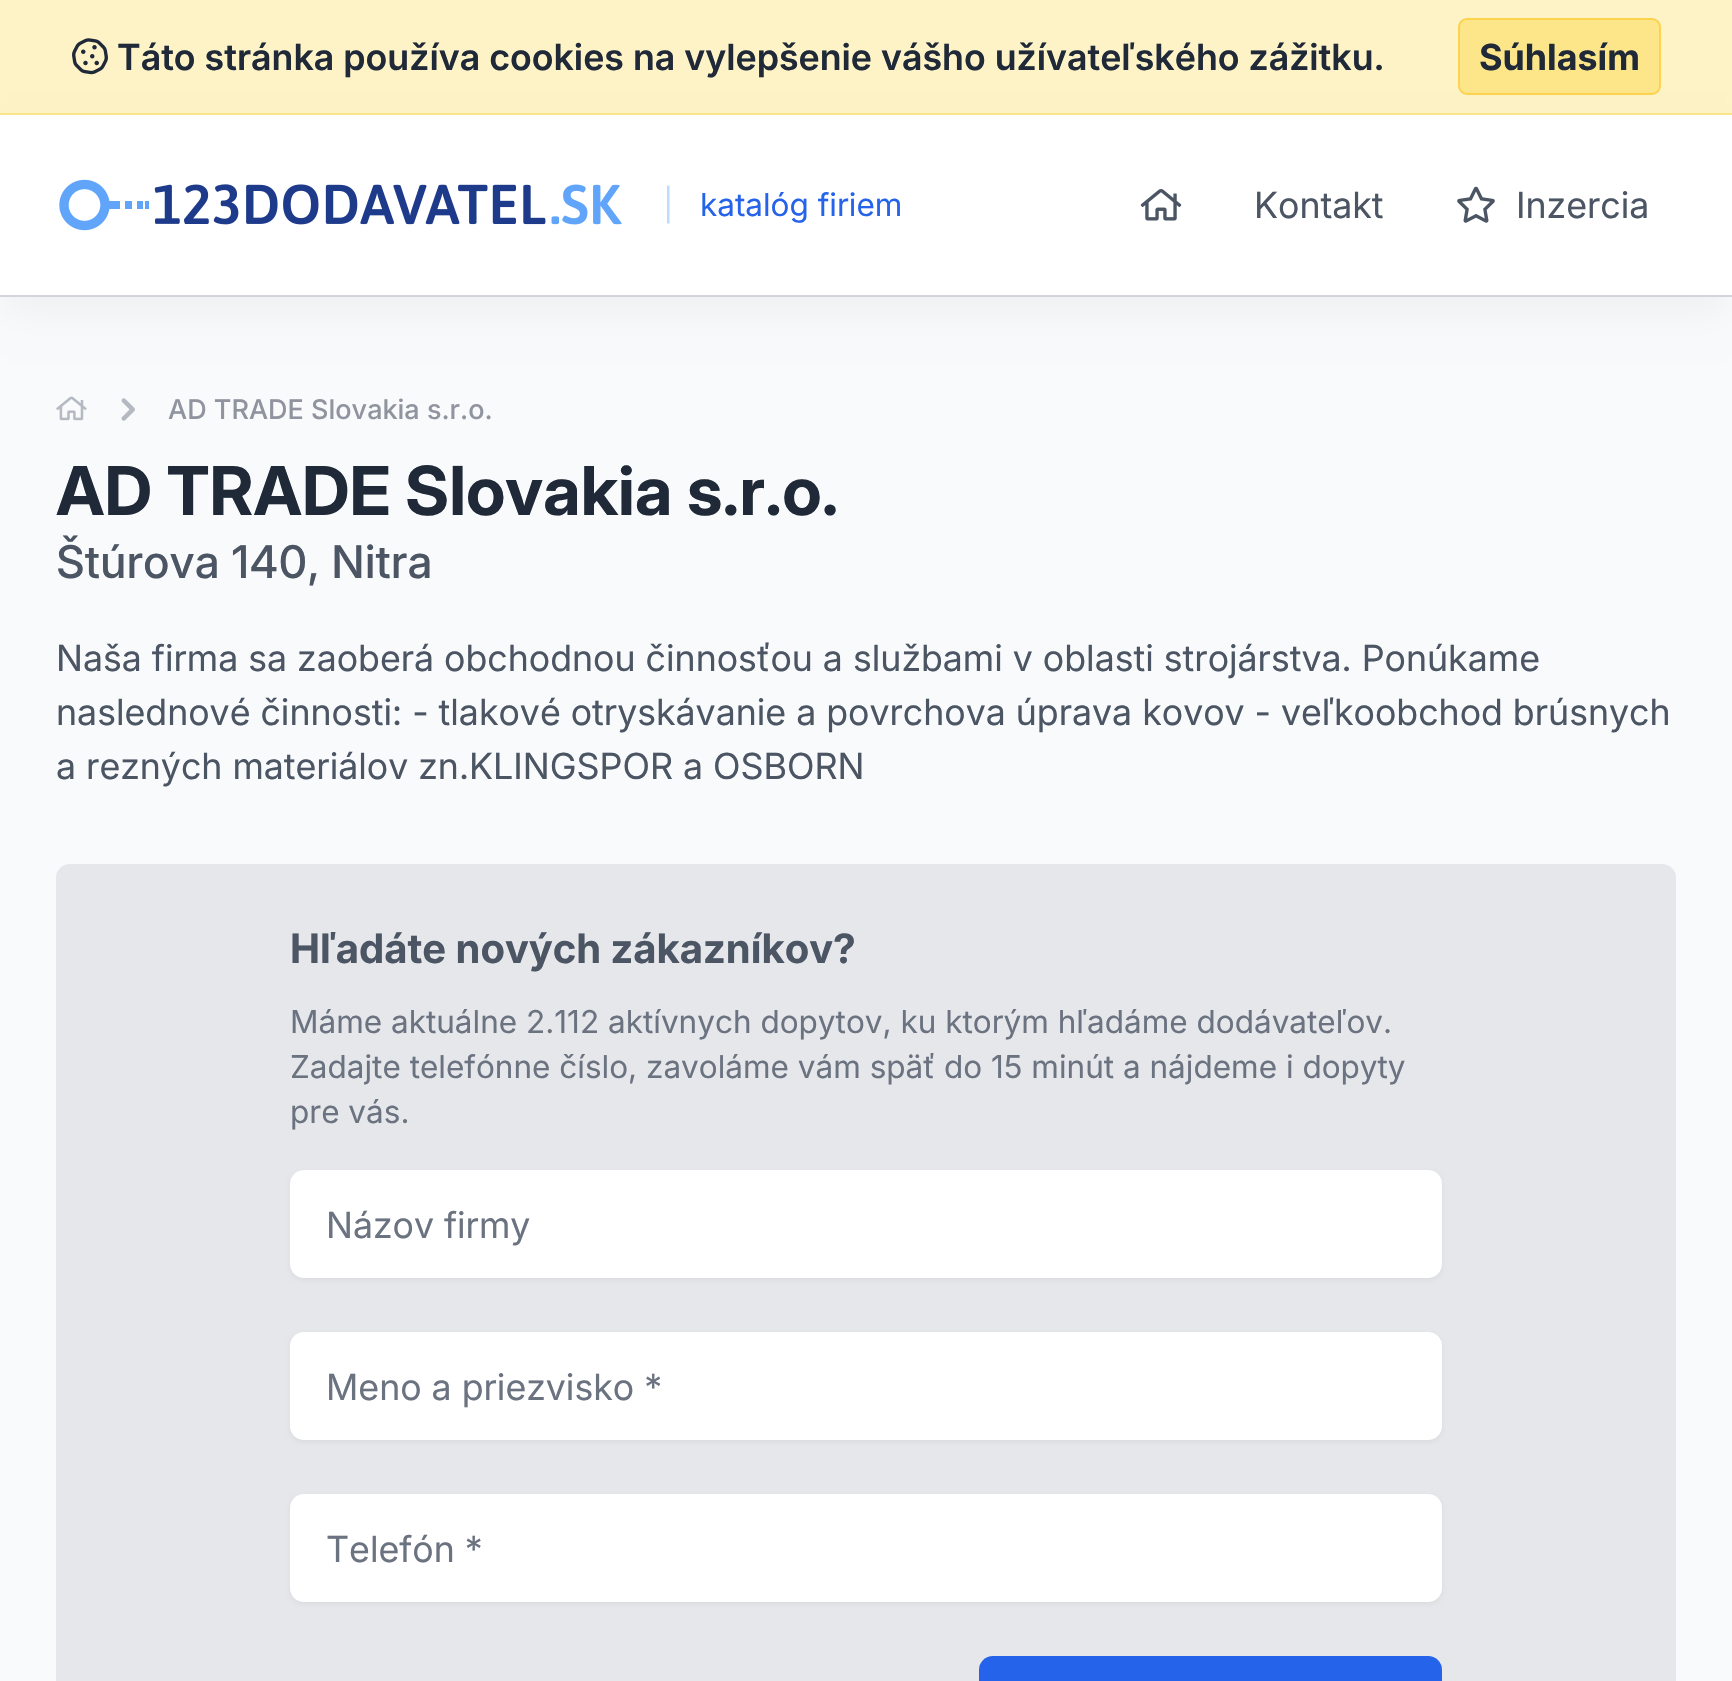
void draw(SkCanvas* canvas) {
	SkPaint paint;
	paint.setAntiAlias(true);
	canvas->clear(0xfffef3c7);
	paint.setColor(0xfffde68a);
	canvas->drawRect(SkRect::MakeXYWH(0, 113, 1732, 2), paint);
	canvas->drawImageRect(SkImages::DeferredFromEncodedData(SkData::MakeFromFileName("img1.png")), SkRect::MakeXYWH(72, 38, 36, 37), SkSamplingOptions());
	SkFont f1(fontMgr->matchFamilyStyle("Inter", SkFontStyle(600, SkFontStyle::kNormal_Width, SkFontStyle::kUpright_Slant)), 36);
	f1.setSubpixel(true);
	paint.setColor(0xff1f2937);
	canvas->drawString("Táto stránka používa cookies na vylepšenie vášho užívateľského zážitku.", 117, 70, f1, paint);
	paint.setColor(0xfff9fafb);
	canvas->drawRect(SkRect::MakeXYWH(0, 297, 1732, 1384), paint);
	paint.setColor(0x0a000000);
	paint.setMaskFilter(SkMaskFilter::MakeBlur(kNormal_SkBlurStyle, 17));
	canvas->drawRect(SkRect::MakeXYWH(7, 144, 1719, 169), paint);
	paint.setMaskFilter(nullptr);
	paint.setColor(0xfffde68a);
	canvas->drawRoundRect(SkRect::MakeXYWH(1459, 19, 201, 75), 8, 8, paint);
	paint.setStroke(true);
	paint.setStrokeWidth(2);
	paint.setColor(0xfffcd34d);
	canvas->drawRoundRect(SkRect::MakeXYWH(1459, 19, 201, 75), 8, 8, paint);
	SkFont f2(fontMgr->matchFamilyStyle("Inter", SkFontStyle::Bold()), 36);
	f2.setSubpixel(true);
	paint.setStroke(false);
	paint.setColor(0xff1f2937);
	canvas->drawString("Súhlasím", 1479, 70, f2, paint);
	paint.setColor(0xffffffff);
	canvas->drawRect(SkRect::MakeXYWH(0, 115, 1732, 180), paint);
	paint.setColor(0xffd1d5db);
	canvas->drawRect(SkRect::MakeXYWH(0, 295, 1732, 2), paint);
	canvas->drawImageRect(SkImages::DeferredFromEncodedData(SkData::MakeFromFileName("img2.png")), SkRect::MakeXYWH(59, 179, 563, 52), SkSamplingOptions());
	SkFont f3(fontMgr->matchFamilyStyle("Inter", SkFontStyle::Normal()), 31.5);
	f3.setSubpixel(true);
	paint.setColor(0xffbfdbfe);
	canvas->drawString("|", 663, 216, f3, paint);
	paint.setColor(0xff2563eb);
	canvas->drawString("katalóg firiem", 700, 216, f3, paint);
	canvas->drawImageRect(SkImages::DeferredFromEncodedData(SkData::MakeFromFileName("img3.png")), SkRect::MakeXYWH(1140, 189, 42, 32), SkSamplingOptions());
	SkFont f4(fontMgr->matchFamilyStyle("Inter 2", SkFontStyle::Normal()), 36);
	f4.setSubpixel(true);
	paint.setColor(0xff4b5563);
	canvas->drawString("Kontakt", 1254, 218, f4, paint);
	canvas->drawImageRect(SkImages::DeferredFromEncodedData(SkData::MakeFromFileName("img4.png")), SkRect::MakeXYWH(1457, 186, 38, 37), SkSamplingOptions());
	canvas->drawString("Inzercia", 1516, 218, f4, paint);
	canvas->drawImageRect(SkImages::DeferredFromEncodedData(SkData::MakeFromFileName("img5.png")), SkRect::MakeXYWH(56, 396, 31, 25), SkSamplingOptions());
	canvas->drawImageRect(SkImages::DeferredFromEncodedData(SkData::MakeFromFileName("img6.png")), SkRect::MakeXYWH(121, 398, 14, 23), SkSamplingOptions());
	SkFont f5(fontMgr->matchFamilyStyle("Inter 2", SkFontStyle(500, SkFontStyle::kNormal_Width, SkFontStyle::kUpright_Slant)), 27);
	f5.setSubpixel(true);
	paint.setColor(0xff8f949f);
	canvas->drawString("AD TRADE Slovakia s.r.o.", 168, 419, f5, paint);
	SkFont f6(fontMgr->matchFamilyStyle("Inter 2", SkFontStyle::Bold()), 67.5);
	f6.setSubpixel(true);
	paint.setColor(0xff1f2937);
	canvas->drawString("AD TRADE Slovakia s.r.o.", 56, 515, f6, paint);
	SkFont f7(fontMgr->matchFamilyStyle("Inter", SkFontStyle(500, SkFontStyle::kNormal_Width, SkFontStyle::kUpright_Slant)), 45);
	f7.setSubpixel(true);
	paint.setColor(0xff4b5563);
	canvas->drawString("Štúrova 140, Nitra", 56, 578, f7, paint);
	canvas->drawString("Naša firma sa zaoberá obchodnou činnosťou a službami v oblasti strojárstva. Ponúkame", 56, 671, f4, paint);
	canvas->drawString("naslednové činnosti: - tlakové otryskávanie a povrchova úprava kovov - veľkoobchod brúsnych", 56, 725, f4, paint);
	canvas->drawString("a rezných materiálov zn.KLINGSPOR a OSBORN", 56, 779, f4, paint);
	paint.setColor(0xffe5e7eb);
	canvas->drawRoundRect(SkRect::MakeXYWH(56, 864, 1620, 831), 14, 14, paint);
	SkFont f8(fontMgr->matchFamilyStyle("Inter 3", SkFontStyle::Bold()), 40.5);
	f8.setSubpixel(true);
	paint.setColor(0xff4b5563);
	canvas->drawString("Hľadáte nových zákazníkov?", 290, 963, f8, paint);
	paint.setColor(0xff6b7280);
	canvas->drawString("Máme aktuálne 2.112 aktívnych dopytov, ku ktorým hľadáme dodávateľov.", 290, 1033, f3, paint);
	canvas->drawString("Zadajte telefónne číslo, zavoláme vám späť do 15 minút a nájdeme i dopyty", 290, 1078, f3, paint);
	canvas->drawString("pre vás.", 290, 1123, f3, paint);
	paint.setColor(0x0d000000);
	paint.setMaskFilter(SkMaskFilter::MakeBlur(kNormal_SkBlurStyle, 2));
	canvas->drawRoundRect(SkRect::MakeXYWH(290, 1172, 1152, 108), 14, 14, paint);
	paint.setMaskFilter(nullptr);
	paint.setColor(0xffffffff);
	canvas->drawRoundRect(SkRect::MakeXYWH(290, 1170, 1152, 108), 14, 14, paint);
	paint.setColor(0xff6b7280);
	canvas->drawString("Názov firmy", 326, 1238, f4, paint);
	paint.setColor(0x0d000000);
	paint.setMaskFilter(SkMaskFilter::MakeBlur(kNormal_SkBlurStyle, 2));
	canvas->drawRoundRect(SkRect::MakeXYWH(290, 1334, 1152, 108), 14, 14, paint);
	paint.setMaskFilter(nullptr);
	paint.setColor(0xffffffff);
	canvas->drawRoundRect(SkRect::MakeXYWH(290, 1332, 1152, 108), 14, 14, paint);
	paint.setColor(0xff6b7280);
	canvas->drawString("Meno a priezvisko *", 326, 1400, f4, paint);
	paint.setColor(0x0d000000);
	paint.setMaskFilter(SkMaskFilter::MakeBlur(kNormal_SkBlurStyle, 2));
	canvas->drawRoundRect(SkRect::MakeXYWH(290, 1496, 1152, 108), 14, 14, paint);
	paint.setMaskFilter(nullptr);
	paint.setColor(0xffffffff);
	canvas->drawRoundRect(SkRect::MakeXYWH(290, 1494, 1152, 108), 14, 14, paint);
	paint.setColor(0xff6b7280);
	canvas->drawString("Telefón *", 326, 1562, f4, paint);
	paint.setColor(0xff2563eb);
	canvas->drawRoundRect(SkRect::MakeXYWH(979, 1656, 463, 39), 14, 14, paint);
}
